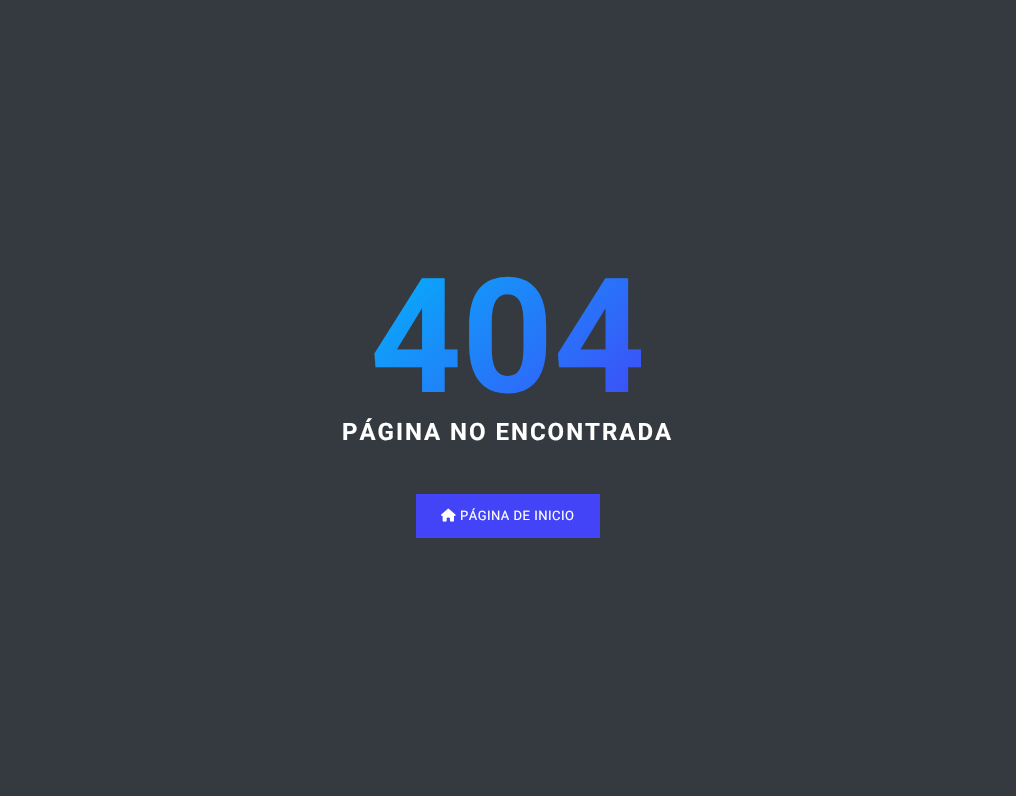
void draw(SkCanvas* canvas) {
	SkPaint paint;
	paint.setAntiAlias(true);
	auto spacedText = [&](const char* s, float x, float y, const SkFont& font, const SkPaint& ink, float letter, float word) {
		std::vector<SkGlyphID> glyphs(font.countText(s, strlen(s), SkTextEncoding::kUTF8));
		std::vector<float> xs(glyphs.size());
		font.textToGlyphs(s, strlen(s), SkTextEncoding::kUTF8, glyphs);
		font.getXPos(glyphs, xs, x);
		float extra = 0;
		for (size_t i = 0; i < glyphs.size(); i++) {
			xs[i] += extra;
			extra += letter + word * (glyphs[i] == font.unicharToGlyph(' '));
		}
		canvas->drawTextBlob(SkTextBlob::MakeFromPosHGlyphs(glyphs, xs, y, font), 0, 0, ink);
	};
	canvas->clear(0xff343a40);
	SkFont f1(fontMgr->matchFamilyStyle("Roboto", SkFontStyle::Bold()), 160);
	f1.setSubpixel(true);
	{
		const SkColor colors[] = {0xff00b9fa, 0xff4344f8};
		const float stops[] = {0, 1};
		const SkPoint ends[] = {{392, 221}, {624, 453}};
		paint.setShader(SkGradientShader::MakeLinear(ends, colors, stops, 2, SkTileMode::kClamp));
		paint.setAlpha(255);
	}
	canvas->drawString("404", 370, 392, f1, paint);
	SkFont f2(fontMgr->matchFamilyStyle("Roboto", SkFontStyle::Bold()), 24);
	f2.setSubpixel(true);
	paint.setShader(nullptr);
	paint.setColor(0xffffffff);
	spacedText("PÁGINA NO ENCONTRADA", 342, 440, f2, paint, 2, 0);
	paint.setColor(0xff4344f8);
	canvas->drawRect(SkRect::MakeXYWH(416, 494, 184, 44), paint);
	canvas->drawImageRect(SkImages::DeferredFromEncodedData(SkData::MakeFromFileName("img1.png")), SkRect::MakeXYWH(441, 508, 15, 14), SkSamplingOptions());
	SkFont f3(fontMgr->matchFamilyStyle("Roboto", SkFontStyle::Normal()), 13);
	f3.setSubpixel(true);
	paint.setColor(0xffffffff);
	spacedText("PÁGINA DE INICIO", 460, 520, f3, paint, 0.5, 0);
}
